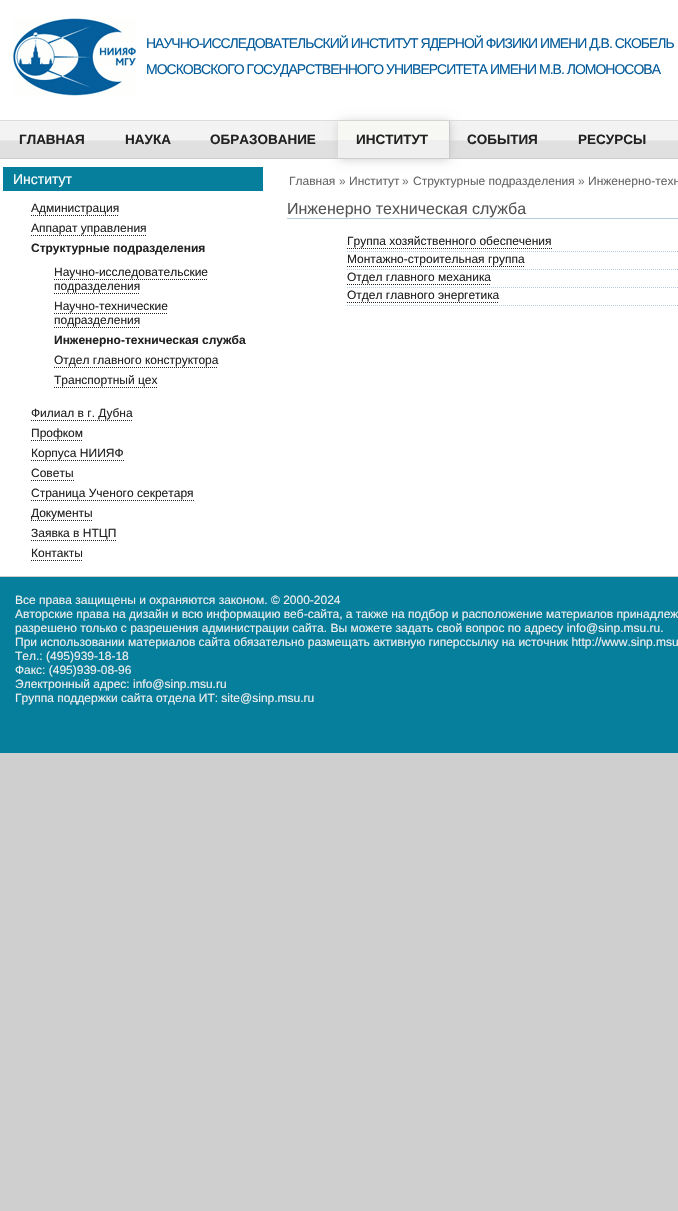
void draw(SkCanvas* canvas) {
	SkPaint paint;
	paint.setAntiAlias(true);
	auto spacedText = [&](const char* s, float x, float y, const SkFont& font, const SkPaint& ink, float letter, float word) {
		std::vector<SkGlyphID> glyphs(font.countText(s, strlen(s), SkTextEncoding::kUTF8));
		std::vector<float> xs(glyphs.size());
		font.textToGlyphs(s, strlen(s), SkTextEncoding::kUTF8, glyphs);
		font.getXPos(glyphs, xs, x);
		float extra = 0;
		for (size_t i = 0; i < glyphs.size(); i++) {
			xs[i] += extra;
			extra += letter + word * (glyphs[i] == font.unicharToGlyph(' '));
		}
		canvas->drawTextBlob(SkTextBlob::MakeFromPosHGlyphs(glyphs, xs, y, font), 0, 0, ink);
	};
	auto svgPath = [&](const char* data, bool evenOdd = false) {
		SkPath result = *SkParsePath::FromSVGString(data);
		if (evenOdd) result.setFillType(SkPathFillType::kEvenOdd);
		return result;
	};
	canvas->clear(0xffcfcfcf);
	paint.setColor(0xffffffff);
	canvas->drawRect(SkRect::MakeXYWH(0, 0, 678, 576), paint);
	canvas->drawImageRect(SkImages::DeferredFromEncodedData(SkData::MakeFromFileName("img1.png")), SkRect::MakeXYWH(13, 18, 123, 78), SkSamplingOptions());
	SkFont f1(fontMgr->matchFamilyStyle("Liberation Sans", SkFontStyle::Normal()), 14);
	f1.setSubpixel(true);
	paint.setColor(0xff065d9c);
	spacedText("НАУЧНО-ИССЛЕДОВАТЕЛЬСКИЙ ИНСТИТУТ ЯДЕРНОЙ ФИЗИКИ ИМЕНИ Д.В. СКОБЕЛЬ", 146, 48, f1, paint, -1, 0);
	spacedText("МОСКОВСКОГО ГОСУДАРСТВЕННОГО УНИВЕРСИТЕТА ИМЕНИ М.В. ЛОМОНОСОВА", 146, 74, f1, paint, -1, 0);
	canvas->drawImageRect(SkImages::DeferredFromEncodedData(SkData::MakeFromFileName("img2.png")), SkRect::MakeXYWH(0, 121, 678, 37), SkSamplingOptions());
	paint.setColor(0xffdddddd);
	canvas->drawRect(SkRect::MakeXYWH(0, 120, 678, 1), paint);
	paint.setColor(0xffcccccc);
	canvas->drawRect(SkRect::MakeXYWH(0, 158, 678, 1), paint);
	SkFont f2(fontMgr->matchFamilyStyle("Liberation Sans", SkFontStyle::Bold()), 13.5);
	f2.setSubpixel(true);
	paint.setColor(0xff222222);
	canvas->drawString("ГЛАВНАЯ", 19, 144, f2, paint);
	canvas->drawString("НАУКА", 125, 144, f2, paint);
	canvas->drawString("ОБРАЗОВАНИЕ", 210, 144, f2, paint);
	paint.setColor(0xffcccccc);
	paint.setMaskFilter(SkMaskFilter::MakeBlur(kNormal_SkBlurStyle, 0.5));
	canvas->drawRect(SkRect::MakeXYWH(339, 121, 111, 37), paint);
	paint.setMaskFilter(nullptr);
	paint.setMaskFilter(SkMaskFilter::MakeBlur(kNormal_SkBlurStyle, 5));
	canvas->drawRect(SkRect::MakeXYWH(339, 122, 111, 37), paint);
	paint.setMaskFilter(nullptr);
	canvas->drawImageRect(SkImages::DeferredFromEncodedData(SkData::MakeFromFileName("img3.png")), SkRect::MakeXYWH(338, 121, 111, 37), SkSamplingOptions());
	paint.setColor(0xff222222);
	canvas->drawString("ИНСТИТУТ", 356, 144, f2, paint);
	canvas->drawString("СОБЫТИЯ", 467, 144, f2, paint);
	canvas->drawString("РЕСУРСЫ", 578, 144, f2, paint);
	paint.setColor(0xff067f9c);
	canvas->drawRect(SkRect::MakeXYWH(3, 167, 260, 24), paint);
	paint.setColor(0xffffffff);
	canvas->drawString("Институт", 13, 184, f1, paint);
	SkFont f3(fontMgr->matchFamilyStyle("Liberation Sans", SkFontStyle::Normal()), 12);
	f3.setSubpixel(true);
	paint.setColor(0xff222222);
	canvas->drawString("Администрация", 31, 212, f3, paint);
	paint.setStroke(true);
	paint.setStrokeWidth(1);
	paint.setPathEffect(SkDashPathEffect::Make({{1, 1}}, 0));
	canvas->drawPath(svgPath("M31 215.5H119"), paint);
	paint.setPathEffect(nullptr);
	paint.setStroke(false);
	canvas->drawString("Аппарат управления", 31, 232, f3, paint);
	paint.setStroke(true);
	paint.setPathEffect(SkDashPathEffect::Make({{1, 1}}, 0));
	canvas->drawPath(svgPath("M31 235.5H147"), paint);
	paint.setPathEffect(nullptr);
	SkFont f4(fontMgr->matchFamilyStyle("Liberation Sans", SkFontStyle::Bold()), 12);
	f4.setSubpixel(true);
	paint.setStroke(false);
	canvas->drawString("Структурные подразделения", 31, 252, f4, paint);
	canvas->drawString("Научно-исследовательские", 54, 276, f3, paint);
	paint.setStroke(true);
	paint.setPathEffect(SkDashPathEffect::Make({{1, 1}}, 0));
	canvas->drawPath(svgPath("M54 279.5H208"), paint);
	paint.setPathEffect(nullptr);
	paint.setStroke(false);
	canvas->drawString("подразделения", 54, 290, f3, paint);
	paint.setStroke(true);
	paint.setPathEffect(SkDashPathEffect::Make({{1, 1}}, 0));
	canvas->drawPath(svgPath("M54 293.5H140"), paint);
	paint.setPathEffect(nullptr);
	paint.setStroke(false);
	canvas->drawString("Научно-технические", 54, 310, f3, paint);
	paint.setStroke(true);
	paint.setPathEffect(SkDashPathEffect::Make({{1, 1}}, 0));
	canvas->drawPath(svgPath("M54 313.5H168"), paint);
	paint.setPathEffect(nullptr);
	paint.setStroke(false);
	canvas->drawString("подразделения", 54, 324, f3, paint);
	paint.setStroke(true);
	paint.setPathEffect(SkDashPathEffect::Make({{1, 1}}, 0));
	canvas->drawPath(svgPath("M54 327.5H140"), paint);
	paint.setPathEffect(nullptr);
	paint.setStroke(false);
	canvas->drawString("Инженерно-техническая служба", 54, 344, f4, paint);
	canvas->drawString("Отдел главного конструктора", 54, 364, f3, paint);
	paint.setStroke(true);
	paint.setPathEffect(SkDashPathEffect::Make({{1, 1}}, 0));
	canvas->drawPath(svgPath("M54 367.5H218"), paint);
	paint.setPathEffect(nullptr);
	paint.setStroke(false);
	canvas->drawString("Транспортный цех", 54, 384, f3, paint);
	paint.setStroke(true);
	paint.setPathEffect(SkDashPathEffect::Make({{1, 1}}, 0));
	canvas->drawPath(svgPath("M54 387.5H157"), paint);
	paint.setPathEffect(nullptr);
	paint.setStroke(false);
	canvas->drawString("Филиал в г. Дубна", 31, 417, f3, paint);
	paint.setStroke(true);
	paint.setPathEffect(SkDashPathEffect::Make({{1, 1}}, 0));
	canvas->drawPath(svgPath("M31 420.5H133"), paint);
	paint.setPathEffect(nullptr);
	paint.setStroke(false);
	canvas->drawString("Профком", 31, 437, f3, paint);
	paint.setStroke(true);
	paint.setPathEffect(SkDashPathEffect::Make({{1, 1}}, 0));
	canvas->drawPath(svgPath("M31 440.5H83"), paint);
	paint.setPathEffect(nullptr);
	paint.setStroke(false);
	canvas->drawString("Корпуса НИИЯФ", 31, 457, f3, paint);
	paint.setStroke(true);
	paint.setPathEffect(SkDashPathEffect::Make({{1, 1}}, 0));
	canvas->drawPath(svgPath("M31 460.5H124"), paint);
	paint.setPathEffect(nullptr);
	paint.setStroke(false);
	canvas->drawString("Советы", 31, 477, f3, paint);
	paint.setStroke(true);
	paint.setPathEffect(SkDashPathEffect::Make({{1, 1}}, 0));
	canvas->drawPath(svgPath("M31 480.5H74"), paint);
	paint.setPathEffect(nullptr);
	paint.setStroke(false);
	canvas->drawString("Страница Ученого секретаря", 31, 497, f3, paint);
	paint.setStroke(true);
	paint.setPathEffect(SkDashPathEffect::Make({{1, 1}}, 0));
	canvas->drawPath(svgPath("M31 500.5H194"), paint);
	paint.setPathEffect(nullptr);
	paint.setStroke(false);
	canvas->drawString("Документы", 31, 517, f3, paint);
	paint.setStroke(true);
	paint.setPathEffect(SkDashPathEffect::Make({{1, 1}}, 0));
	canvas->drawPath(svgPath("M31 520.5H93"), paint);
	paint.setPathEffect(nullptr);
	paint.setStroke(false);
	canvas->drawString("Заявка в НТЦП", 31, 537, f3, paint);
	paint.setStroke(true);
	paint.setPathEffect(SkDashPathEffect::Make({{1, 1}}, 0));
	canvas->drawPath(svgPath("M31 540.5H116"), paint);
	paint.setPathEffect(nullptr);
	paint.setStroke(false);
	canvas->drawString("Контакты", 31, 557, f3, paint);
	paint.setStroke(true);
	paint.setPathEffect(SkDashPathEffect::Make({{1, 1}}, 0));
	canvas->drawPath(svgPath("M31 560.5H83"), paint);
	paint.setPathEffect(nullptr);
	paint.setStroke(false);
	paint.setColor(0xff666666);
	canvas->drawString("Главная", 289, 185, f3, paint);
	paint.setColor(0xff777777);
	canvas->drawString("»", 339, 185, f3, paint);
	paint.setColor(0xff666666);
	canvas->drawString("Институт", 349, 185, f3, paint);
	paint.setColor(0xff777777);
	canvas->drawString("»", 402, 185, f3, paint);
	paint.setColor(0xff666666);
	canvas->drawString("Структурные подразделения", 413, 185, f3, paint);
	paint.setColor(0xff777777);
	canvas->drawString("»", 578, 185, f3, paint);
	paint.setColor(0xff666666);
	canvas->drawString("Инженерно-техн", 588, 185, f3, paint);
	paint.setColor(0xffb7cce1);
	canvas->drawRect(SkRect::MakeXYWH(287, 218, 391, 1), paint);
	SkFont f5(fontMgr->matchFamilyStyle("Liberation Sans", SkFontStyle::Normal()), 16);
	f5.setSubpixel(true);
	paint.setColor(0xff555555);
	canvas->drawString("Инженерно техническая служба", 287, 214, f5, paint);
	paint.setStroke(true);
	paint.setColor(0xffb7cce1);
	paint.setPathEffect(SkDashPathEffect::Make({{1, 1}}, 0));
	canvas->drawPath(svgPath("M347 251.5H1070"), paint);
	paint.setPathEffect(nullptr);
	paint.setStroke(false);
	paint.setColor(0xff222222);
	canvas->drawString("Группа хозяйственного обеспечения", 347, 245, f3, paint);
	paint.setStroke(true);
	paint.setPathEffect(SkDashPathEffect::Make({{1, 1}}, 0));
	canvas->drawPath(svgPath("M347 248.5H552"), paint);
	paint.setPathEffect(nullptr);
	paint.setColor(0xffb7cce1);
	paint.setPathEffect(SkDashPathEffect::Make({{1, 1}}, 0));
	canvas->drawPath(svgPath("M347 269.5H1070"), paint);
	paint.setPathEffect(nullptr);
	paint.setStroke(false);
	paint.setColor(0xff222222);
	canvas->drawString("Монтажно-строительная группа", 347, 263, f3, paint);
	paint.setStroke(true);
	paint.setPathEffect(SkDashPathEffect::Make({{1, 1}}, 0));
	canvas->drawPath(svgPath("M347 266.5H525"), paint);
	paint.setPathEffect(nullptr);
	paint.setColor(0xffb7cce1);
	paint.setPathEffect(SkDashPathEffect::Make({{1, 1}}, 0));
	canvas->drawPath(svgPath("M347 287.5H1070"), paint);
	paint.setPathEffect(nullptr);
	paint.setStroke(false);
	paint.setColor(0xff222222);
	canvas->drawString("Отдел главного механика", 347, 281, f3, paint);
	paint.setStroke(true);
	paint.setPathEffect(SkDashPathEffect::Make({{1, 1}}, 0));
	canvas->drawPath(svgPath("M347 284.5H491"), paint);
	paint.setPathEffect(nullptr);
	paint.setColor(0xffb7cce1);
	paint.setPathEffect(SkDashPathEffect::Make({{1, 1}}, 0));
	canvas->drawPath(svgPath("M347 305.5H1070"), paint);
	paint.setPathEffect(nullptr);
	paint.setStroke(false);
	paint.setColor(0xff222222);
	canvas->drawString("Отдел главного энергетика", 347, 299, f3, paint);
	paint.setStroke(true);
	paint.setPathEffect(SkDashPathEffect::Make({{1, 1}}, 0));
	canvas->drawPath(svgPath("M347 302.5H499"), paint);
	paint.setPathEffect(nullptr);
	paint.setStroke(false);
	paint.setColor(0xff067f9c);
	canvas->drawRect(SkRect::MakeXYWH(0, 577, 678, 176), paint);
	paint.setColor(0xffcccccc);
	canvas->drawRect(SkRect::MakeXYWH(0, 576, 678, 1), paint);
	paint.setColor(0xffeeeeee);
	canvas->drawString("Все права защищены и охраняются законом. © 2000-2024", 15, 604, f3, paint);
	canvas->drawString("Авторские права на дизайн и всю информацию веб-сайта, а также на подбор и расположение материалов принадлеж", 15, 618, f3, paint);
	canvas->drawString("разрешено только с разрешения администрации сайта. Вы можете задать свой вопрос по адресу info@sinp.msu.ru.", 15, 632, f3, paint);
	canvas->drawString("При использовании материалов сайта обязательно размещать активную гиперссылку на источник http://www.sinp.msu", 15, 646, f3, paint);
	canvas->drawString("Тел.: (495)939-18-18", 15, 660, f3, paint);
	canvas->drawString("Факс: (495)939-08-96", 15, 674, f3, paint);
	canvas->drawString("Электронный адрес: info@sinp.msu.ru", 15, 688, f3, paint);
	canvas->drawString("Группа поддержки сайта отдела ИТ: site@sinp.msu.ru", 15, 702, f3, paint);
}
